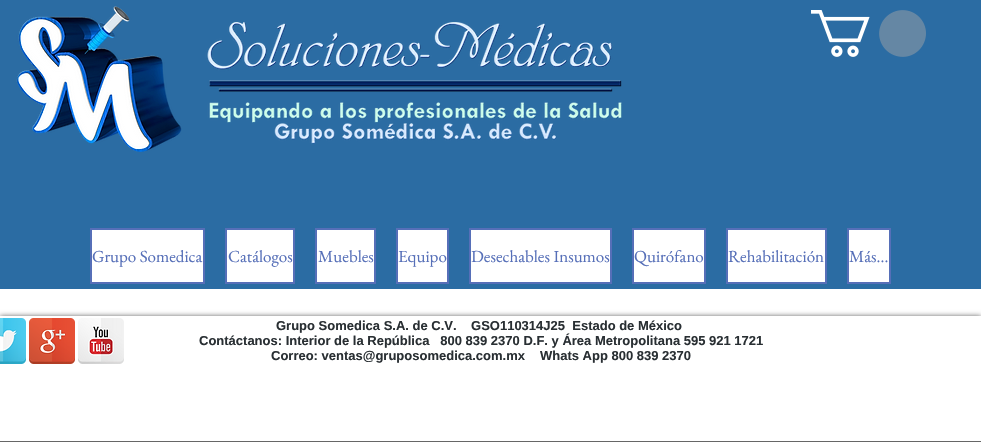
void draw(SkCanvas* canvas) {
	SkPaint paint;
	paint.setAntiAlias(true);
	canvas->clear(0xffffffff);
	paint.setColor(0xff2b6ca3);
	canvas->drawRect(SkRect::MakeXYWH(0, 0, 981, 289), paint);
	canvas->drawImageRect(SkImages::DeferredFromEncodedData(SkData::MakeFromFileName("img1.png")), SkRect::MakeXYWH(16, 6, 606, 146), SkSamplingOptions());
	canvas->drawImageRect(SkImages::DeferredFromEncodedData(SkData::MakeFromFileName("img2.png")), SkRect::MakeXYWH(811, 10, 115, 47), SkSamplingOptions());
	paint.setColor(0xffffffff);
	canvas->drawRect(SkRect::MakeXYWH(91, 229, 113, 54), paint);
	paint.setStroke(true);
	paint.setStrokeWidth(2);
	paint.setColor(0xff566fb8);
	canvas->drawRect(SkRect::MakeXYWH(91, 229, 113, 54), paint);
	SkFont f1(fontMgr->matchFamilyStyle("EB Garamond", SkFontStyle::Normal()), 17);
	f1.setSubpixel(true);
	paint.setStroke(false);
	canvas->drawString("Grupo Somedica", 92, 262, f1, paint);
	paint.setColor(0xffffffff);
	canvas->drawRect(SkRect::MakeXYWH(226, 229, 68, 54), paint);
	paint.setStroke(true);
	paint.setColor(0xff566fb8);
	canvas->drawRect(SkRect::MakeXYWH(226, 229, 68, 54), paint);
	paint.setStroke(false);
	canvas->drawString("Catálogos", 228, 262, f1, paint);
	paint.setColor(0xffffffff);
	canvas->drawRect(SkRect::MakeXYWH(316, 229, 59, 54), paint);
	paint.setStroke(true);
	paint.setColor(0xff566fb8);
	canvas->drawRect(SkRect::MakeXYWH(316, 229, 59, 54), paint);
	paint.setStroke(false);
	canvas->drawString("Muebles", 318, 262, f1, paint);
	paint.setColor(0xffffffff);
	canvas->drawRect(SkRect::MakeXYWH(397, 229, 51, 54), paint);
	paint.setStroke(true);
	paint.setColor(0xff566fb8);
	canvas->drawRect(SkRect::MakeXYWH(397, 229, 51, 54), paint);
	paint.setStroke(false);
	canvas->drawString("Equipo", 398, 262, f1, paint);
	paint.setColor(0xffffffff);
	canvas->drawRect(SkRect::MakeXYWH(470, 229, 141, 54), paint);
	paint.setStroke(true);
	paint.setColor(0xff566fb8);
	canvas->drawRect(SkRect::MakeXYWH(470, 229, 141, 54), paint);
	paint.setStroke(false);
	canvas->drawString("Desechables Insumos", 471, 262, f1, paint);
	paint.setColor(0xffffffff);
	canvas->drawRect(SkRect::MakeXYWH(633, 229, 72, 54), paint);
	paint.setStroke(true);
	paint.setColor(0xff566fb8);
	canvas->drawRect(SkRect::MakeXYWH(633, 229, 72, 54), paint);
	paint.setStroke(false);
	canvas->drawString("Quirófano", 634, 262, f1, paint);
	paint.setColor(0xffffffff);
	canvas->drawRect(SkRect::MakeXYWH(727, 229, 99, 54), paint);
	paint.setStroke(true);
	paint.setColor(0xff566fb8);
	canvas->drawRect(SkRect::MakeXYWH(727, 229, 99, 54), paint);
	paint.setStroke(false);
	canvas->drawString("Rehabilitación", 728, 262, f1, paint);
	paint.setColor(0xffffffff);
	canvas->drawRect(SkRect::MakeXYWH(848, 229, 42, 54), paint);
	paint.setStroke(true);
	paint.setColor(0xff566fb8);
	canvas->drawRect(SkRect::MakeXYWH(848, 229, 42, 54), paint);
	paint.setStroke(false);
	canvas->drawString("Más...", 849, 262, f1, paint);
	paint.setColor(0x99000000);
	paint.setMaskFilter(SkMaskFilter::MakeBlur(kNormal_SkBlurStyle, 2.5));
	canvas->drawRect(SkRect::MakeXYWH(0, 316, 981, 126), paint);
	paint.setMaskFilter(nullptr);
	paint.setColor(0xffffffff);
	canvas->drawRect(SkRect::MakeXYWH(0, 316, 981, 125), paint);
	paint.setColor(0xff666666);
	canvas->drawRect(SkRect::MakeXYWH(0, 441, 981, 1), paint);
	canvas->drawImageRect(SkImages::DeferredFromEncodedData(SkData::MakeFromFileName("img3.png")), SkRect::MakeXYWH(0, 318, 26, 46), SkSamplingOptions());
	canvas->drawImageRect(SkImages::DeferredFromEncodedData(SkData::MakeFromFileName("img4.png")), SkRect::MakeXYWH(29, 318, 46, 46), SkSamplingOptions());
	canvas->drawImageRect(SkImages::DeferredFromEncodedData(SkData::MakeFromFileName("img5.png")), SkRect::MakeXYWH(78, 318, 46, 46), SkSamplingOptions());
	SkFont f2(fontMgr->matchFamilyStyle("Liberation Sans", SkFontStyle::Bold()), 13);
	f2.setSubpixel(true);
	paint.setColor(0xff292f33);
	canvas->drawString("Grupo Somedica S.A. de C.V.    GSO110314J25  Estado de México", 276, 330, f2, paint);
	canvas->drawString("Contáctanos: Interior de la República   800 839 2370 D.F. y Área Metropolitana 595 921 1721", 199, 345, f2, paint);
	canvas->drawString("Correo: ventas@gruposomedica.com.mx", 271, 360, f2, paint);
	canvas->drawString("Whats App 800 839 2370", 540, 360, f2, paint);
}
